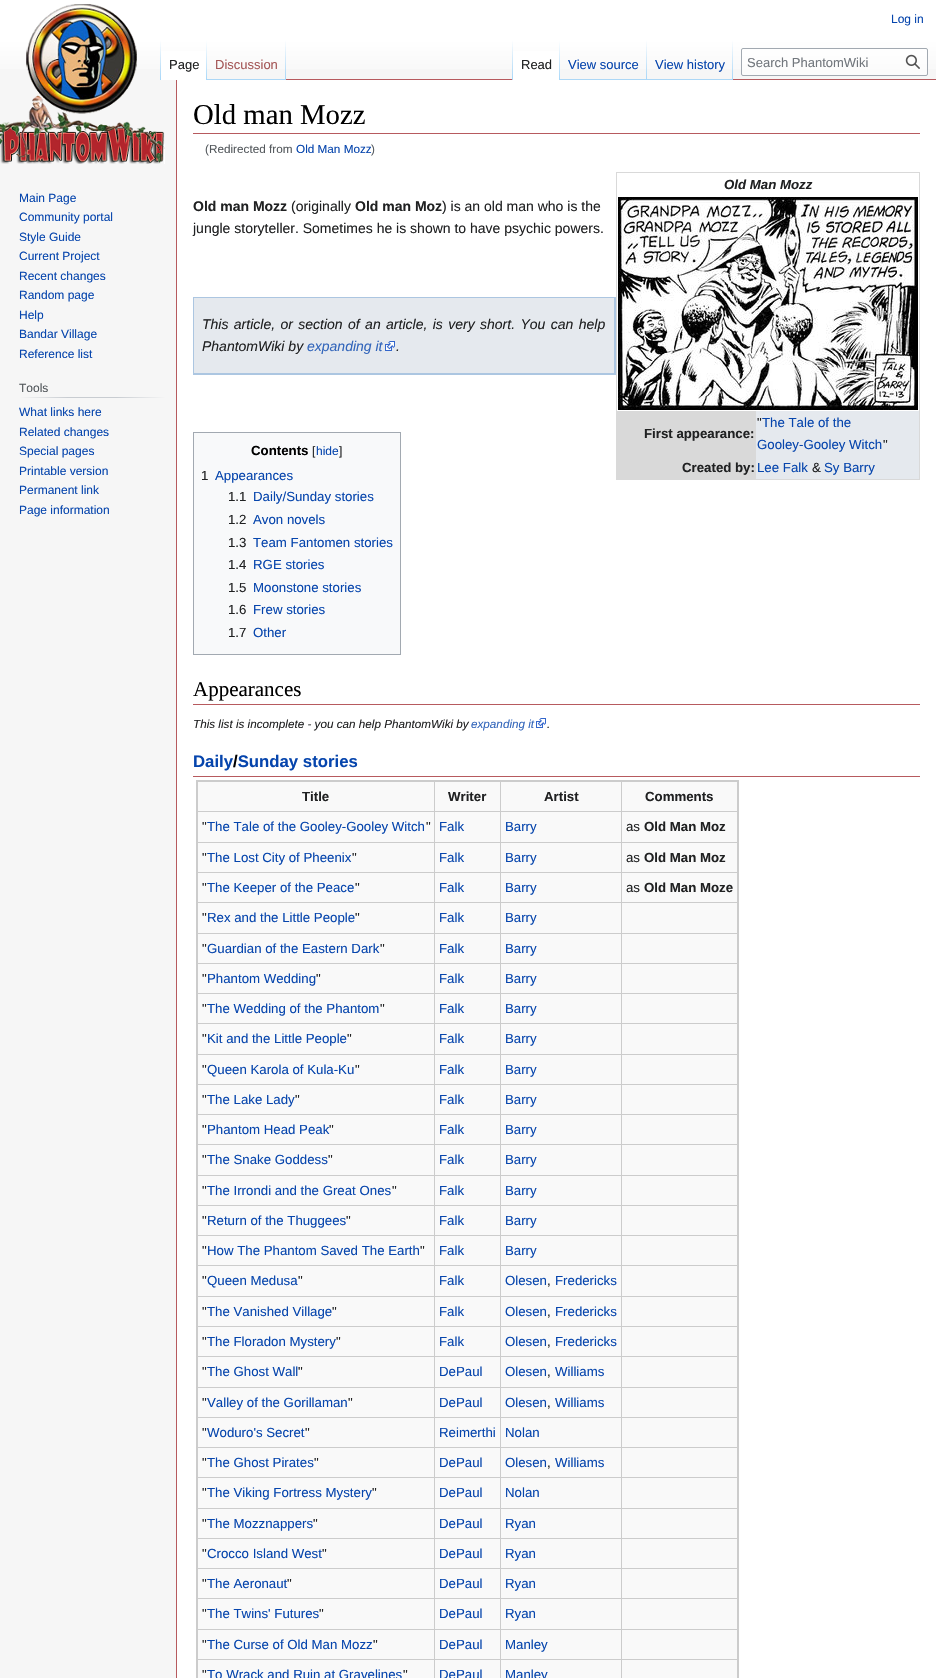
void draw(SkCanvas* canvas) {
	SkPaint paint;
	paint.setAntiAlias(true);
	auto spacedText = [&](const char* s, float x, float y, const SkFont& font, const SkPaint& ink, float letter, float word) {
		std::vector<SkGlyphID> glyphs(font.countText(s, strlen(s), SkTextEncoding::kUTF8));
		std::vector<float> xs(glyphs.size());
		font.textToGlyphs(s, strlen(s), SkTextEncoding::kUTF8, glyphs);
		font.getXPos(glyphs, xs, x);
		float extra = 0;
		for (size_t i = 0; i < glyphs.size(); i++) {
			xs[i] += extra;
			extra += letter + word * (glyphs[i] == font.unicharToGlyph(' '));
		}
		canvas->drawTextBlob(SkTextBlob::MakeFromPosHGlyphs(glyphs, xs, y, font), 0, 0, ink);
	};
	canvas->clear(0xfff6f6f6);
	{
		const SkColor colors[] = {0xffffffff, 0xfff6f6f6};
		const float stops[] = {0.5, 1};
		const SkPoint ends[] = {{468, 0}, {468, 80}};
		paint.setShader(SkGradientShader::MakeLinear(ends, colors, stops, 2, SkTileMode::kClamp));
		paint.setAlpha(255);
	}
	canvas->drawRect(SkRect::MakeXYWH(0, 0, 936, 69), paint);
	SkFont f1(fontMgr->matchFamilyStyle("Liberation Sans", SkFontStyle::Normal()), 12);
	f1.setSubpixel(true);
	paint.setShader(nullptr);
	paint.setColor(0xff0645ad);
	canvas->drawString("Log in", 891, 23, f1, paint);
	{
		const SkColor colors[] = {0x00a7d7f9, 0xffa7d7f9};
		const float stops[] = {0, 1};
		const SkPoint ends[] = {{161, 40}, {161, 80}};
		paint.setShader(SkGradientShader::MakeLinear(ends, colors, stops, 2, SkTileMode::kClamp));
		paint.setAlpha(255);
	}
	canvas->drawRect(SkRect::MakeXYWH(160, 40, 1, 40), paint);
	paint.setShader(nullptr);
	paint.setColor(0xffb75a5e);
	canvas->drawRect(SkRect::MakeXYWH(176, 79, 1, 1599), paint);
	paint.setColor(0xffffffff);
	canvas->drawRect(SkRect::MakeXYWH(161, 51, 45, 29), paint);
	{
		const SkColor colors[] = {0xffffffff, 0xffa7d7f9};
		const float stops[] = {0, 1};
		const SkPoint ends[] = {{207, 40}, {207, 80}};
		paint.setShader(SkGradientShader::MakeLinear(ends, colors, stops, 2, SkTileMode::kClamp));
		paint.setAlpha(255);
	}
	canvas->drawRect(SkRect::MakeXYWH(206, 40, 1, 40), paint);
	SkFont f2(fontMgr->matchFamilyStyle("Liberation Sans", SkFontStyle::Normal()), 13);
	f2.setSubpixel(true);
	paint.setShader(nullptr);
	paint.setColor(0xff202122);
	canvas->drawString("Page", 169, 69, f2, paint);
	{
		const SkColor colors[] = {0xff77c1f6, 0xfff6f6f6, 0xffffffff};
		const float stops[] = {0, 0.03, 1};
		const SkPoint ends[] = {{247, 80}, {247, 40}};
		paint.setShader(SkGradientShader::MakeLinear(ends, colors, stops, 3, SkTileMode::kClamp));
		paint.setAlpha(255);
	}
	canvas->drawRect(SkRect::MakeXYWH(207, 79, 79, 1), paint);
	{
		const SkColor colors[] = {0x00a7d7f9, 0xffa7d7f9};
		const float stops[] = {0, 1};
		const SkPoint ends[] = {{286, 40}, {286, 80}};
		paint.setShader(SkGradientShader::MakeLinear(ends, colors, stops, 2, SkTileMode::kClamp));
		paint.setAlpha(255);
	}
	canvas->drawRect(SkRect::MakeXYWH(285, 40, 1, 40), paint);
	paint.setShader(nullptr);
	paint.setColor(0xffa55858);
	canvas->drawString("Discussion", 215, 69, f2, paint);
	paint.setColor(0xffb75a5e);
	canvas->drawRect(SkRect::MakeXYWH(286, 79, 650, 1), paint);
	{
		const SkColor colors[] = {0x00a7d7f9, 0xffa7d7f9};
		const float stops[] = {0, 1};
		const SkPoint ends[] = {{513, 40}, {513, 80}};
		paint.setShader(SkGradientShader::MakeLinear(ends, colors, stops, 2, SkTileMode::kClamp));
		paint.setAlpha(255);
	}
	canvas->drawRect(SkRect::MakeXYWH(512, 40, 1, 40), paint);
	paint.setShader(nullptr);
	paint.setColor(0xffffffff);
	canvas->drawRect(SkRect::MakeXYWH(513, 51, 46, 29), paint);
	{
		const SkColor colors[] = {0xffffffff, 0xffa7d7f9};
		const float stops[] = {0, 1};
		const SkPoint ends[] = {{560, 40}, {560, 80}};
		paint.setShader(SkGradientShader::MakeLinear(ends, colors, stops, 2, SkTileMode::kClamp));
		paint.setAlpha(255);
	}
	canvas->drawRect(SkRect::MakeXYWH(559, 40, 1, 40), paint);
	paint.setShader(nullptr);
	paint.setColor(0xff202122);
	canvas->drawString("Read", 521, 69, f2, paint);
	{
		const SkColor colors[] = {0xff77c1f6, 0xfff6f6f6, 0xffffffff};
		const float stops[] = {0, 0.03, 1};
		const SkPoint ends[] = {{604, 80}, {604, 40}};
		paint.setShader(SkGradientShader::MakeLinear(ends, colors, stops, 3, SkTileMode::kClamp));
		paint.setAlpha(255);
	}
	canvas->drawRect(SkRect::MakeXYWH(560, 79, 87, 1), paint);
	{
		const SkColor colors[] = {0x00a7d7f9, 0xffa7d7f9};
		const float stops[] = {0, 1};
		const SkPoint ends[] = {{647, 40}, {647, 80}};
		paint.setShader(SkGradientShader::MakeLinear(ends, colors, stops, 2, SkTileMode::kClamp));
		paint.setAlpha(255);
	}
	canvas->drawRect(SkRect::MakeXYWH(646, 40, 1, 40), paint);
	paint.setShader(nullptr);
	paint.setColor(0xff0645ad);
	canvas->drawString("View source", 568, 69, f2, paint);
	{
		const SkColor colors[] = {0xff77c1f6, 0xfff6f6f6, 0xffffffff};
		const float stops[] = {0, 0.03, 1};
		const SkPoint ends[] = {{690, 80}, {690, 40}};
		paint.setShader(SkGradientShader::MakeLinear(ends, colors, stops, 3, SkTileMode::kClamp));
		paint.setAlpha(255);
	}
	canvas->drawRect(SkRect::MakeXYWH(647, 79, 86, 1), paint);
	{
		const SkColor colors[] = {0x00a7d7f9, 0xffa7d7f9};
		const float stops[] = {0, 1};
		const SkPoint ends[] = {{733, 40}, {733, 80}};
		paint.setShader(SkGradientShader::MakeLinear(ends, colors, stops, 2, SkTileMode::kClamp));
		paint.setAlpha(255);
	}
	canvas->drawRect(SkRect::MakeXYWH(732, 40, 1, 40), paint);
	paint.setShader(nullptr);
	paint.setColor(0xff0645ad);
	canvas->drawString("View history", 655, 69, f2, paint);
	paint.setColor(0x80ffffff);
	canvas->drawRoundRect(SkRect::MakeXYWH(741.5, 48.5, 186, 27), 1.5, 1.5, paint);
	paint.setStroke(true);
	paint.setStrokeWidth(1);
	paint.setColor(0xffa2a9b1);
	canvas->drawRoundRect(SkRect::MakeXYWH(741.5, 48.5, 186, 27), 1.5, 1.5, paint);
	paint.setStroke(false);
	paint.setColor(0xff72777d);
	canvas->drawString("Search PhantomWiki", 747, 67, f2, paint);
	canvas->drawImageRect(SkImages::DeferredFromEncodedData(SkData::MakeFromFileName("img1.png")), SkRect::MakeXYWH(905, 54, 15, 15), SkSamplingOptions());
	canvas->drawImageRect(SkImages::DeferredFromEncodedData(SkData::MakeFromFileName("img2.png")), SkRect::MakeXYWH(0, 4, 165, 160), SkSamplingOptions());
	paint.setColor(0xff0645ad);
	canvas->drawString("Main Page", 19, 202, f1, paint);
	canvas->drawString("Community portal", 19, 221, f1, paint);
	canvas->drawString("Style Guide", 19, 241, f1, paint);
	canvas->drawString("Current Project", 19, 260, f1, paint);
	canvas->drawString("Recent changes", 19, 280, f1, paint);
	canvas->drawString("Random page", 19, 299, f1, paint);
	canvas->drawString("Help", 19, 319, f1, paint);
	canvas->drawString("Bandar Village", 19, 338, f1, paint);
	canvas->drawString("Reference list", 19, 358, f1, paint);
	{
		const SkColor colors[] = {0xfff6f6f6, 0xffc8ccd1, 0xffc8ccd1, 0xfff6f6f6};
		const float stops[] = {0, 0.33, 0.66, 1};
		const SkPoint ends[] = {{19, 398}, {166, 398}};
		paint.setShader(SkGradientShader::MakeLinear(ends, colors, stops, 4, SkTileMode::kClamp));
		paint.setAlpha(255);
	}
	canvas->drawRect(SkRect::MakeXYWH(19, 397, 147, 1), paint);
	paint.setShader(nullptr);
	paint.setColor(0xff54595d);
	canvas->drawString("Tools", 19, 392, f1, paint);
	paint.setColor(0xff0645ad);
	canvas->drawString("What links here", 19, 416, f1, paint);
	canvas->drawString("Related changes", 19, 436, f1, paint);
	canvas->drawString("Special pages", 19, 455, f1, paint);
	canvas->drawString("Printable version", 19, 475, f1, paint);
	canvas->drawString("Permanent link", 19, 494, f1, paint);
	canvas->drawString("Page information", 19, 514, f1, paint);
	paint.setColor(0xffffffff);
	canvas->drawRect(SkRect::MakeXYWH(177, 80, 759, 1598), paint);
	paint.setColor(0xffb75a5e);
	canvas->drawRect(SkRect::MakeXYWH(193, 133, 727, 1), paint);
	SkFont f3(fontMgr->matchFamilyStyle("Liberation Serif", SkFontStyle::Normal()), 28.75);
	f3.setSubpixel(true);
	paint.setColor(0xff000000);
	canvas->drawString("Old man Mozz", 193, 124, f3, paint);
	SkFont f4(fontMgr->matchFamilyStyle("Liberation Sans", SkFontStyle::Normal()), 11.75);
	f4.setSubpixel(true);
	paint.setColor(0xff54595d);
	canvas->drawString("(Redirected from", 205, 153, f4, paint);
	paint.setColor(0xff0645ad);
	canvas->drawString("Old Man Mozz", 296, 153, f4, paint);
	paint.setColor(0xff54595d);
	canvas->drawString(")", 371, 153, f4, paint);
	SkFont f5(fontMgr->matchFamilyStyle("Liberation Sans", SkFontStyle::Bold()), 14);
	f5.setSubpixel(true);
	paint.setColor(0xff202122);
	canvas->drawString("Old man Mozz", 193, 211, f5, paint);
	SkFont f6(fontMgr->matchFamilyStyle("Liberation Sans", SkFontStyle::Normal()), 14);
	f6.setSubpixel(true);
	canvas->drawString("(originally", 291, 211, f6, paint);
	canvas->drawString("Old man Moz", 355, 211, f5, paint);
	canvas->drawString(") is an old man who is the", 442, 211, f6, paint);
	canvas->drawString("jungle storyteller. Sometimes he is shown to have psychic powers.", 193, 233, f6, paint);
	paint.setColor(0xffd9d9d9);
	canvas->drawRect(SkRect::MakeXYWH(616, 172, 304, 1), paint);
	canvas->drawRect(SkRect::MakeXYWH(919, 172, 1, 308), paint);
	canvas->drawRect(SkRect::MakeXYWH(616, 479, 304, 1), paint);
	canvas->drawRect(SkRect::MakeXYWH(616, 172, 1, 308), paint);
	SkFont f7(fontMgr->matchFamilyStyle("Liberation Sans", SkFontStyle::BoldItalic()), 13.25);
	f7.setSubpixel(true);
	paint.setColor(0xff202122);
	canvas->drawString("Old Man Mozz", 724, 189, f7, paint);
	canvas->drawImageRect(SkImages::DeferredFromEncodedData(SkData::MakeFromFileName("img3.png")), SkRect::MakeXYWH(618, 197, 300, 213), SkSamplingOptions());
	paint.setColor(0xffd9d9d9);
	canvas->drawRect(SkRect::MakeXYWH(617, 411, 139, 68), paint);
	SkFont f8(fontMgr->matchFamilyStyle("Liberation Sans", SkFontStyle::Bold()), 13.25);
	f8.setSubpixel(true);
	paint.setColor(0xff202122);
	canvas->drawString("First appearance:", 644, 438, f8, paint);
	paint.setColor(0xffe5e9ee);
	canvas->drawRect(SkRect::MakeXYWH(756, 411, 163, 68), paint);
	SkFont f9(fontMgr->matchFamilyStyle("Liberation Sans", SkFontStyle::Normal()), 13.25);
	f9.setSubpixel(true);
	paint.setColor(0xff202122);
	canvas->drawString("\"", 757, 427, f9, paint);
	paint.setColor(0xff0645ad);
	canvas->drawString("The Tale of the", 762, 427, f9, paint);
	canvas->drawString("Gooley-Gooley Witch", 757, 449, f9, paint);
	paint.setColor(0xff202122);
	canvas->drawString("\"", 883, 449, f9, paint);
	canvas->drawString("Created by:", 682, 472, f8, paint);
	paint.setColor(0xff0645ad);
	canvas->drawString("Lee Falk", 757, 472, f9, paint);
	paint.setColor(0xff202122);
	canvas->drawString("&", 812, 472, f9, paint);
	paint.setColor(0xff0645ad);
	canvas->drawString("Sy Barry", 824, 472, f9, paint);
	paint.setColor(0xffe5e9ee);
	canvas->drawRect(SkRect::MakeXYWH(194, 298, 420, 75), paint);
	paint.setColor(0xffacc6e1);
	canvas->drawRect(SkRect::MakeXYWH(193, 297, 423, 1), paint);
	canvas->drawRect(SkRect::MakeXYWH(614, 297, 2, 78), paint);
	canvas->drawRect(SkRect::MakeXYWH(193, 373, 423, 2), paint);
	canvas->drawRect(SkRect::MakeXYWH(193, 297, 1, 78), paint);
	SkFont f10(fontMgr->matchFamilyStyle("Liberation Sans", SkFontStyle::Italic()), 14);
	f10.setSubpixel(true);
	paint.setColor(0xff202122);
	spacedText("This article, or section of an article, is very short. You can help", 202, 329, f10, paint, 0, 1.5);
	canvas->drawString("PhantomWiki by", 202, 351, f10, paint);
	paint.setColor(0xff3366bb);
	canvas->drawString("expanding it", 307, 351, f10, paint);
	canvas->drawImageRect(SkImages::DeferredFromEncodedData(SkData::MakeFromFileName("img4.png")), SkRect::MakeXYWH(385, 341, 10, 10), SkSamplingOptions());
	paint.setColor(0xff202122);
	canvas->drawString(".", 396, 351, f10, paint);
	paint.setColor(0xfff8f9fa);
	canvas->drawRect(SkRect::MakeXYWH(193.5, 432.5, 207, 222), paint);
	paint.setStroke(true);
	paint.setColor(0xffa2a9b1);
	canvas->drawRect(SkRect::MakeXYWH(193.5, 432.5, 207, 222), paint);
	paint.setStroke(false);
	paint.setColor(0xff000000);
	canvas->drawString("Contents", 251, 455, f8, paint);
	paint.setColor(0xff202122);
	canvas->drawString("[", 312, 455, f1, paint);
	paint.setColor(0xff0645ad);
	canvas->drawString("hide", 316, 455, f1, paint);
	paint.setColor(0xff202122);
	canvas->drawString("]", 339, 455, f1, paint);
	canvas->drawString("1", 201, 480, f9, paint);
	paint.setColor(0xff0645ad);
	canvas->drawString("Appearances", 215, 480, f9, paint);
	paint.setColor(0xff202122);
	canvas->drawString("1.1", 228, 501, f9, paint);
	paint.setColor(0xff0645ad);
	canvas->drawString("Daily/Sunday stories", 253, 501, f9, paint);
	paint.setColor(0xff202122);
	canvas->drawString("1.2", 228, 524, f9, paint);
	paint.setColor(0xff0645ad);
	canvas->drawString("Avon novels", 253, 524, f9, paint);
	paint.setColor(0xff202122);
	canvas->drawString("1.3", 228, 547, f9, paint);
	paint.setColor(0xff0645ad);
	canvas->drawString("Team Fantomen stories", 253, 547, f9, paint);
	paint.setColor(0xff202122);
	canvas->drawString("1.4", 228, 569, f9, paint);
	paint.setColor(0xff0645ad);
	canvas->drawString("RGE stories", 253, 569, f9, paint);
	paint.setColor(0xff202122);
	canvas->drawString("1.5", 228, 592, f9, paint);
	paint.setColor(0xff0645ad);
	canvas->drawString("Moonstone stories", 253, 592, f9, paint);
	paint.setColor(0xff202122);
	canvas->drawString("1.6", 228, 614, f9, paint);
	paint.setColor(0xff0645ad);
	canvas->drawString("Frew stories", 253, 614, f9, paint);
	paint.setColor(0xff202122);
	canvas->drawString("1.7", 228, 637, f9, paint);
	paint.setColor(0xff0645ad);
	canvas->drawString("Other", 253, 637, f9, paint);
	paint.setColor(0xffb75a5e);
	canvas->drawRect(SkRect::MakeXYWH(193, 704, 727, 1), paint);
	SkFont f11(fontMgr->matchFamilyStyle("Liberation Serif", SkFontStyle::Normal()), 21);
	f11.setSubpixel(true);
	paint.setColor(0xff000000);
	canvas->drawString("Appearances", 193, 696, f11, paint);
	SkFont f12(fontMgr->matchFamilyStyle("Liberation Sans", SkFontStyle::Italic()), 11.7);
	f12.setSubpixel(true);
	paint.setColor(0xff202122);
	canvas->drawString("This list is incomplete - you can help PhantomWiki by", 193, 728, f12, paint);
	paint.setColor(0xff3366bb);
	canvas->drawString("expanding it", 471, 728, f12, paint);
	canvas->drawImageRect(SkImages::DeferredFromEncodedData(SkData::MakeFromFileName("img5.png")), SkRect::MakeXYWH(536, 718, 10, 10), SkSamplingOptions());
	paint.setColor(0xff202122);
	canvas->drawString(".", 547, 728, f12, paint);
	paint.setColor(0xffb75a5e);
	canvas->drawRect(SkRect::MakeXYWH(193, 776, 727, 1), paint);
	SkFont f13(fontMgr->matchFamilyStyle("Liberation Sans", SkFontStyle::Bold()), 16.75);
	f13.setSubpixel(true);
	paint.setColor(0xff0645ad);
	canvas->drawString("Daily Sunday stories", 193, 767, f13, paint);
	paint.setColor(0xff000000);
	canvas->drawString("/", 233, 767, f13, paint);
	paint.setColor(0xfff9f9f9);
	canvas->drawRect(SkRect::MakeXYWH(198, 782, 539, 896), paint);
	paint.setColor(0xffcccccc);
	canvas->drawRect(SkRect::MakeXYWH(621, 811, 117, 1), paint);
	canvas->drawRect(SkRect::MakeXYWH(621, 842, 117, 1), paint);
	canvas->drawRect(SkRect::MakeXYWH(621, 872, 117, 1), paint);
	canvas->drawRect(SkRect::MakeXYWH(621, 902, 117, 1), paint);
	canvas->drawRect(SkRect::MakeXYWH(621, 933, 117, 1), paint);
	canvas->drawRect(SkRect::MakeXYWH(621, 963, 117, 1), paint);
	canvas->drawRect(SkRect::MakeXYWH(621, 993, 117, 1), paint);
	canvas->drawRect(SkRect::MakeXYWH(621, 1023, 117, 1), paint);
	canvas->drawRect(SkRect::MakeXYWH(621, 1054, 117, 1), paint);
	canvas->drawRect(SkRect::MakeXYWH(621, 1084, 117, 1), paint);
	canvas->drawRect(SkRect::MakeXYWH(621, 1114, 117, 1), paint);
	canvas->drawRect(SkRect::MakeXYWH(621, 1144, 117, 1), paint);
	canvas->drawRect(SkRect::MakeXYWH(621, 1175, 117, 1), paint);
	canvas->drawRect(SkRect::MakeXYWH(621, 1205, 117, 1), paint);
	canvas->drawRect(SkRect::MakeXYWH(621, 1235, 117, 1), paint);
	canvas->drawRect(SkRect::MakeXYWH(621, 1265, 117, 1), paint);
	canvas->drawRect(SkRect::MakeXYWH(621, 1296, 117, 1), paint);
	canvas->drawRect(SkRect::MakeXYWH(621, 1326, 117, 1), paint);
	canvas->drawRect(SkRect::MakeXYWH(621, 1356, 117, 1), paint);
	canvas->drawRect(SkRect::MakeXYWH(621, 1387, 117, 1), paint);
	canvas->drawRect(SkRect::MakeXYWH(621, 1417, 117, 1), paint);
	canvas->drawRect(SkRect::MakeXYWH(621, 1447, 117, 1), paint);
	canvas->drawRect(SkRect::MakeXYWH(621, 1477, 117, 1), paint);
	canvas->drawRect(SkRect::MakeXYWH(621, 1508, 117, 1), paint);
	canvas->drawRect(SkRect::MakeXYWH(621, 1538, 117, 1), paint);
	canvas->drawRect(SkRect::MakeXYWH(621, 1568, 117, 1), paint);
	canvas->drawRect(SkRect::MakeXYWH(621, 1598, 117, 1), paint);
	canvas->drawRect(SkRect::MakeXYWH(621, 1629, 117, 1), paint);
	canvas->drawRect(SkRect::MakeXYWH(621, 1659, 117, 1), paint);
	canvas->drawRect(SkRect::MakeXYWH(621, 1659, 1, 19), paint);
	canvas->drawRect(SkRect::MakeXYWH(500, 1659, 122, 1), paint);
	canvas->drawRect(SkRect::MakeXYWH(621, 1629, 1, 31), paint);
	canvas->drawRect(SkRect::MakeXYWH(500, 1629, 122, 1), paint);
	canvas->drawRect(SkRect::MakeXYWH(621, 1598, 1, 32), paint);
	canvas->drawRect(SkRect::MakeXYWH(500, 1598, 122, 1), paint);
	canvas->drawRect(SkRect::MakeXYWH(621, 1568, 1, 31), paint);
	canvas->drawRect(SkRect::MakeXYWH(500, 1568, 122, 1), paint);
	canvas->drawRect(SkRect::MakeXYWH(621, 1538, 1, 31), paint);
	canvas->drawRect(SkRect::MakeXYWH(500, 1538, 122, 1), paint);
	canvas->drawRect(SkRect::MakeXYWH(621, 1508, 1, 31), paint);
	canvas->drawRect(SkRect::MakeXYWH(500, 1508, 122, 1), paint);
	canvas->drawRect(SkRect::MakeXYWH(621, 1477, 1, 32), paint);
	canvas->drawRect(SkRect::MakeXYWH(500, 1477, 122, 1), paint);
	canvas->drawRect(SkRect::MakeXYWH(621, 1447, 1, 31), paint);
	canvas->drawRect(SkRect::MakeXYWH(500, 1447, 122, 1), paint);
	canvas->drawRect(SkRect::MakeXYWH(621, 1417, 1, 31), paint);
	canvas->drawRect(SkRect::MakeXYWH(500, 1417, 122, 1), paint);
	canvas->drawRect(SkRect::MakeXYWH(621, 1387, 1, 31), paint);
	canvas->drawRect(SkRect::MakeXYWH(500, 1387, 122, 1), paint);
	canvas->drawRect(SkRect::MakeXYWH(621, 1356, 1, 32), paint);
	canvas->drawRect(SkRect::MakeXYWH(500, 1356, 122, 1), paint);
	canvas->drawRect(SkRect::MakeXYWH(621, 1326, 1, 31), paint);
	canvas->drawRect(SkRect::MakeXYWH(500, 1326, 122, 1), paint);
	canvas->drawRect(SkRect::MakeXYWH(621, 1296, 1, 31), paint);
	canvas->drawRect(SkRect::MakeXYWH(500, 1296, 122, 1), paint);
	canvas->drawRect(SkRect::MakeXYWH(621, 1265, 1, 32), paint);
	canvas->drawRect(SkRect::MakeXYWH(500, 1265, 122, 1), paint);
	canvas->drawRect(SkRect::MakeXYWH(621, 1235, 1, 31), paint);
	canvas->drawRect(SkRect::MakeXYWH(500, 1235, 122, 1), paint);
	canvas->drawRect(SkRect::MakeXYWH(621, 1205, 1, 31), paint);
	canvas->drawRect(SkRect::MakeXYWH(500, 1205, 122, 1), paint);
	canvas->drawRect(SkRect::MakeXYWH(621, 1175, 1, 31), paint);
	canvas->drawRect(SkRect::MakeXYWH(500, 1175, 122, 1), paint);
	canvas->drawRect(SkRect::MakeXYWH(621, 1144, 1, 32), paint);
	canvas->drawRect(SkRect::MakeXYWH(500, 1144, 122, 1), paint);
	canvas->drawRect(SkRect::MakeXYWH(621, 1114, 1, 31), paint);
	canvas->drawRect(SkRect::MakeXYWH(500, 1114, 122, 1), paint);
	canvas->drawRect(SkRect::MakeXYWH(621, 1084, 1, 31), paint);
	canvas->drawRect(SkRect::MakeXYWH(500, 1084, 122, 1), paint);
	canvas->drawRect(SkRect::MakeXYWH(621, 1054, 1, 31), paint);
	canvas->drawRect(SkRect::MakeXYWH(500, 1054, 122, 1), paint);
	canvas->drawRect(SkRect::MakeXYWH(621, 1023, 1, 32), paint);
	canvas->drawRect(SkRect::MakeXYWH(500, 1023, 122, 1), paint);
	canvas->drawRect(SkRect::MakeXYWH(621, 993, 1, 31), paint);
	canvas->drawRect(SkRect::MakeXYWH(500, 993, 122, 1), paint);
	canvas->drawRect(SkRect::MakeXYWH(621, 963, 1, 31), paint);
	canvas->drawRect(SkRect::MakeXYWH(500, 963, 122, 1), paint);
	canvas->drawRect(SkRect::MakeXYWH(621, 933, 1, 31), paint);
	canvas->drawRect(SkRect::MakeXYWH(500, 933, 122, 1), paint);
	canvas->drawRect(SkRect::MakeXYWH(621, 902, 1, 32), paint);
	canvas->drawRect(SkRect::MakeXYWH(500, 902, 122, 1), paint);
	canvas->drawRect(SkRect::MakeXYWH(621, 872, 1, 31), paint);
	canvas->drawRect(SkRect::MakeXYWH(500, 872, 122, 1), paint);
	canvas->drawRect(SkRect::MakeXYWH(621, 842, 1, 31), paint);
	canvas->drawRect(SkRect::MakeXYWH(500, 842, 122, 1), paint);
	canvas->drawRect(SkRect::MakeXYWH(621, 811, 1, 32), paint);
	canvas->drawRect(SkRect::MakeXYWH(500, 811, 122, 1), paint);
	canvas->drawRect(SkRect::MakeXYWH(500, 1659, 1, 19), paint);
	canvas->drawRect(SkRect::MakeXYWH(434, 1659, 67, 1), paint);
	canvas->drawRect(SkRect::MakeXYWH(500, 1629, 1, 31), paint);
	canvas->drawRect(SkRect::MakeXYWH(434, 1629, 67, 1), paint);
	canvas->drawRect(SkRect::MakeXYWH(500, 1598, 1, 32), paint);
	canvas->drawRect(SkRect::MakeXYWH(434, 1598, 67, 1), paint);
	canvas->drawRect(SkRect::MakeXYWH(500, 1568, 1, 31), paint);
	canvas->drawRect(SkRect::MakeXYWH(434, 1568, 67, 1), paint);
	canvas->drawRect(SkRect::MakeXYWH(500, 1538, 1, 31), paint);
	canvas->drawRect(SkRect::MakeXYWH(434, 1538, 67, 1), paint);
	canvas->drawRect(SkRect::MakeXYWH(500, 1508, 1, 31), paint);
	canvas->drawRect(SkRect::MakeXYWH(434, 1508, 67, 1), paint);
	canvas->drawRect(SkRect::MakeXYWH(500, 1477, 1, 32), paint);
	canvas->drawRect(SkRect::MakeXYWH(434, 1477, 67, 1), paint);
	canvas->drawRect(SkRect::MakeXYWH(500, 1447, 1, 31), paint);
	canvas->drawRect(SkRect::MakeXYWH(434, 1447, 67, 1), paint);
	canvas->drawRect(SkRect::MakeXYWH(500, 1417, 1, 31), paint);
	canvas->drawRect(SkRect::MakeXYWH(434, 1417, 67, 1), paint);
	canvas->drawRect(SkRect::MakeXYWH(500, 1387, 1, 31), paint);
	canvas->drawRect(SkRect::MakeXYWH(434, 1387, 67, 1), paint);
	canvas->drawRect(SkRect::MakeXYWH(500, 1356, 1, 32), paint);
	canvas->drawRect(SkRect::MakeXYWH(434, 1356, 67, 1), paint);
	canvas->drawRect(SkRect::MakeXYWH(500, 1326, 1, 31), paint);
	canvas->drawRect(SkRect::MakeXYWH(434, 1326, 67, 1), paint);
	canvas->drawRect(SkRect::MakeXYWH(500, 1296, 1, 31), paint);
	canvas->drawRect(SkRect::MakeXYWH(434, 1296, 67, 1), paint);
	canvas->drawRect(SkRect::MakeXYWH(500, 1265, 1, 32), paint);
	canvas->drawRect(SkRect::MakeXYWH(434, 1265, 67, 1), paint);
	canvas->drawRect(SkRect::MakeXYWH(500, 1235, 1, 31), paint);
	canvas->drawRect(SkRect::MakeXYWH(434, 1235, 67, 1), paint);
	canvas->drawRect(SkRect::MakeXYWH(500, 1205, 1, 31), paint);
	canvas->drawRect(SkRect::MakeXYWH(434, 1205, 67, 1), paint);
	canvas->drawRect(SkRect::MakeXYWH(500, 1175, 1, 31), paint);
	canvas->drawRect(SkRect::MakeXYWH(434, 1175, 67, 1), paint);
	canvas->drawRect(SkRect::MakeXYWH(500, 1144, 1, 32), paint);
	canvas->drawRect(SkRect::MakeXYWH(434, 1144, 67, 1), paint);
	canvas->drawRect(SkRect::MakeXYWH(500, 1114, 1, 31), paint);
	canvas->drawRect(SkRect::MakeXYWH(434, 1114, 67, 1), paint);
	canvas->drawRect(SkRect::MakeXYWH(500, 1084, 1, 31), paint);
	canvas->drawRect(SkRect::MakeXYWH(434, 1084, 67, 1), paint);
	canvas->drawRect(SkRect::MakeXYWH(500, 1054, 1, 31), paint);
	canvas->drawRect(SkRect::MakeXYWH(434, 1054, 67, 1), paint);
	canvas->drawRect(SkRect::MakeXYWH(500, 1023, 1, 32), paint);
	canvas->drawRect(SkRect::MakeXYWH(434, 1023, 67, 1), paint);
	canvas->drawRect(SkRect::MakeXYWH(500, 993, 1, 31), paint);
	canvas->drawRect(SkRect::MakeXYWH(434, 993, 67, 1), paint);
	canvas->drawRect(SkRect::MakeXYWH(500, 963, 1, 31), paint);
	canvas->drawRect(SkRect::MakeXYWH(434, 963, 67, 1), paint);
	canvas->drawRect(SkRect::MakeXYWH(500, 933, 1, 31), paint);
	canvas->drawRect(SkRect::MakeXYWH(434, 933, 67, 1), paint);
	canvas->drawRect(SkRect::MakeXYWH(500, 902, 1, 32), paint);
	canvas->drawRect(SkRect::MakeXYWH(434, 902, 67, 1), paint);
	canvas->drawRect(SkRect::MakeXYWH(500, 872, 1, 31), paint);
	canvas->drawRect(SkRect::MakeXYWH(434, 872, 67, 1), paint);
	canvas->drawRect(SkRect::MakeXYWH(500, 842, 1, 31), paint);
	canvas->drawRect(SkRect::MakeXYWH(434, 842, 67, 1), paint);
	canvas->drawRect(SkRect::MakeXYWH(500, 811, 1, 32), paint);
	canvas->drawRect(SkRect::MakeXYWH(434, 811, 67, 1), paint);
	canvas->drawRect(SkRect::MakeXYWH(434, 1659, 1, 19), paint);
	canvas->drawRect(SkRect::MakeXYWH(197, 1659, 238, 1), paint);
	canvas->drawRect(SkRect::MakeXYWH(434, 1629, 1, 31), paint);
	canvas->drawRect(SkRect::MakeXYWH(197, 1629, 238, 1), paint);
	canvas->drawRect(SkRect::MakeXYWH(434, 1598, 1, 32), paint);
	canvas->drawRect(SkRect::MakeXYWH(197, 1598, 238, 1), paint);
	canvas->drawRect(SkRect::MakeXYWH(434, 1568, 1, 31), paint);
	canvas->drawRect(SkRect::MakeXYWH(197, 1568, 238, 1), paint);
	canvas->drawRect(SkRect::MakeXYWH(434, 1538, 1, 31), paint);
	canvas->drawRect(SkRect::MakeXYWH(197, 1538, 238, 1), paint);
	canvas->drawRect(SkRect::MakeXYWH(434, 1508, 1, 31), paint);
	canvas->drawRect(SkRect::MakeXYWH(197, 1508, 238, 1), paint);
	canvas->drawRect(SkRect::MakeXYWH(434, 1477, 1, 32), paint);
	canvas->drawRect(SkRect::MakeXYWH(197, 1477, 238, 1), paint);
	canvas->drawRect(SkRect::MakeXYWH(434, 1447, 1, 31), paint);
	canvas->drawRect(SkRect::MakeXYWH(197, 1447, 238, 1), paint);
	canvas->drawRect(SkRect::MakeXYWH(434, 1417, 1, 31), paint);
	canvas->drawRect(SkRect::MakeXYWH(197, 1417, 238, 1), paint);
	canvas->drawRect(SkRect::MakeXYWH(434, 1387, 1, 31), paint);
	canvas->drawRect(SkRect::MakeXYWH(197, 1387, 238, 1), paint);
	canvas->drawRect(SkRect::MakeXYWH(434, 1356, 1, 32), paint);
	canvas->drawRect(SkRect::MakeXYWH(197, 1356, 238, 1), paint);
	canvas->drawRect(SkRect::MakeXYWH(434, 1326, 1, 31), paint);
	canvas->drawRect(SkRect::MakeXYWH(197, 1326, 238, 1), paint);
	canvas->drawRect(SkRect::MakeXYWH(434, 1296, 1, 31), paint);
	canvas->drawRect(SkRect::MakeXYWH(197, 1296, 238, 1), paint);
	canvas->drawRect(SkRect::MakeXYWH(434, 1265, 1, 32), paint);
	canvas->drawRect(SkRect::MakeXYWH(197, 1265, 238, 1), paint);
	canvas->drawRect(SkRect::MakeXYWH(434, 1235, 1, 31), paint);
	canvas->drawRect(SkRect::MakeXYWH(197, 1235, 238, 1), paint);
	canvas->drawRect(SkRect::MakeXYWH(434, 1205, 1, 31), paint);
	canvas->drawRect(SkRect::MakeXYWH(197, 1205, 238, 1), paint);
	canvas->drawRect(SkRect::MakeXYWH(434, 1175, 1, 31), paint);
	canvas->drawRect(SkRect::MakeXYWH(197, 1175, 238, 1), paint);
	canvas->drawRect(SkRect::MakeXYWH(434, 1144, 1, 32), paint);
	canvas->drawRect(SkRect::MakeXYWH(197, 1144, 238, 1), paint);
	canvas->drawRect(SkRect::MakeXYWH(434, 1114, 1, 31), paint);
	canvas->drawRect(SkRect::MakeXYWH(197, 1114, 238, 1), paint);
	canvas->drawRect(SkRect::MakeXYWH(434, 1084, 1, 31), paint);
	canvas->drawRect(SkRect::MakeXYWH(197, 1084, 238, 1), paint);
	canvas->drawRect(SkRect::MakeXYWH(434, 1054, 1, 31), paint);
	canvas->drawRect(SkRect::MakeXYWH(197, 1054, 238, 1), paint);
	canvas->drawRect(SkRect::MakeXYWH(434, 1023, 1, 32), paint);
	canvas->drawRect(SkRect::MakeXYWH(197, 1023, 238, 1), paint);
	canvas->drawRect(SkRect::MakeXYWH(434, 993, 1, 31), paint);
	canvas->drawRect(SkRect::MakeXYWH(197, 993, 238, 1), paint);
	canvas->drawRect(SkRect::MakeXYWH(434, 963, 1, 31), paint);
	canvas->drawRect(SkRect::MakeXYWH(197, 963, 238, 1), paint);
	canvas->drawRect(SkRect::MakeXYWH(434, 933, 1, 31), paint);
	canvas->drawRect(SkRect::MakeXYWH(197, 933, 238, 1), paint);
	canvas->drawRect(SkRect::MakeXYWH(434, 902, 1, 32), paint);
	canvas->drawRect(SkRect::MakeXYWH(197, 902, 238, 1), paint);
	canvas->drawRect(SkRect::MakeXYWH(434, 872, 1, 31), paint);
	canvas->drawRect(SkRect::MakeXYWH(197, 872, 238, 1), paint);
	canvas->drawRect(SkRect::MakeXYWH(434, 842, 1, 31), paint);
	canvas->drawRect(SkRect::MakeXYWH(197, 842, 238, 1), paint);
	canvas->drawRect(SkRect::MakeXYWH(434, 811, 1, 32), paint);
	canvas->drawRect(SkRect::MakeXYWH(197, 811, 238, 1), paint);
	canvas->drawRect(SkRect::MakeXYWH(434, 781, 1, 31), paint);
	canvas->drawRect(SkRect::MakeXYWH(500, 781, 1, 31), paint);
	canvas->drawRect(SkRect::MakeXYWH(621, 781, 1, 31), paint);
	canvas->drawRect(SkRect::MakeXYWH(196, 780, 543, 2), paint);
	canvas->drawRect(SkRect::MakeXYWH(737, 780, 2, 898), paint);
	canvas->drawRect(SkRect::MakeXYWH(196, 780, 2, 898), paint);
	paint.setColor(0xff202122);
	canvas->drawString("Title", 302, 801, f8, paint);
	canvas->drawString("Writer", 448, 801, f8, paint);
	canvas->drawString("Artist", 544, 801, f8, paint);
	canvas->drawString("Comments", 645, 801, f8, paint);
	canvas->drawString("\"", 202, 831, f9, paint);
	paint.setColor(0xff0645ad);
	canvas->drawString("The Tale of the Gooley-Gooley Witch", 207, 831, f9, paint);
	paint.setColor(0xff202122);
	canvas->drawString("\"", 426, 831, f9, paint);
	paint.setColor(0xff0645ad);
	canvas->drawString("Falk", 439, 831, f9, paint);
	canvas->drawString("Barry", 505, 831, f9, paint);
	paint.setColor(0xff202122);
	canvas->drawString("as", 626, 831, f9, paint);
	canvas->drawString("Old Man Moz", 644, 831, f8, paint);
	canvas->drawString("\"", 202, 862, f9, paint);
	paint.setColor(0xff0645ad);
	canvas->drawString("The Lost City of Pheenix", 207, 862, f9, paint);
	paint.setColor(0xff202122);
	canvas->drawString("\"", 352, 862, f9, paint);
	paint.setColor(0xff0645ad);
	canvas->drawString("Falk", 439, 862, f9, paint);
	canvas->drawString("Barry", 505, 862, f9, paint);
	paint.setColor(0xff202122);
	canvas->drawString("as", 626, 862, f9, paint);
	canvas->drawString("Old Man Moz", 644, 862, f8, paint);
	canvas->drawString("\"", 202, 892, f9, paint);
	paint.setColor(0xff0645ad);
	canvas->drawString("The Keeper of the Peace", 207, 892, f9, paint);
	paint.setColor(0xff202122);
	canvas->drawString("\"", 355, 892, f9, paint);
	paint.setColor(0xff0645ad);
	canvas->drawString("Falk", 439, 892, f9, paint);
	canvas->drawString("Barry", 505, 892, f9, paint);
	paint.setColor(0xff202122);
	canvas->drawString("as", 626, 892, f9, paint);
	canvas->drawString("Old Man Moze", 644, 892, f8, paint);
	canvas->drawString("\"", 202, 922, f9, paint);
	paint.setColor(0xff0645ad);
	canvas->drawString("Rex and the Little People", 207, 922, f9, paint);
	paint.setColor(0xff202122);
	canvas->drawString("\"", 355, 922, f9, paint);
	paint.setColor(0xff0645ad);
	canvas->drawString("Falk", 439, 922, f9, paint);
	canvas->drawString("Barry", 505, 922, f9, paint);
	paint.setColor(0xff202122);
	canvas->drawString("\"", 202, 953, f9, paint);
	paint.setColor(0xff0645ad);
	canvas->drawString("Guardian of the Eastern Dark", 207, 953, f9, paint);
	paint.setColor(0xff202122);
	canvas->drawString("\"", 380, 953, f9, paint);
	paint.setColor(0xff0645ad);
	canvas->drawString("Falk", 439, 953, f9, paint);
	canvas->drawString("Barry", 505, 953, f9, paint);
	paint.setColor(0xff202122);
	canvas->drawString("\"", 202, 983, f9, paint);
	paint.setColor(0xff0645ad);
	canvas->drawString("Phantom Wedding", 207, 983, f9, paint);
	paint.setColor(0xff202122);
	canvas->drawString("\"", 316, 983, f9, paint);
	paint.setColor(0xff0645ad);
	canvas->drawString("Falk", 439, 983, f9, paint);
	canvas->drawString("Barry", 505, 983, f9, paint);
	paint.setColor(0xff202122);
	canvas->drawString("\"", 202, 1013, f9, paint);
	paint.setColor(0xff0645ad);
	canvas->drawString("The Wedding of the Phantom", 207, 1013, f9, paint);
	paint.setColor(0xff202122);
	canvas->drawString("\"", 380, 1013, f9, paint);
	paint.setColor(0xff0645ad);
	canvas->drawString("Falk", 439, 1013, f9, paint);
	canvas->drawString("Barry", 505, 1013, f9, paint);
	paint.setColor(0xff202122);
	canvas->drawString("\"", 202, 1043, f9, paint);
	paint.setColor(0xff0645ad);
	canvas->drawString("Kit and the Little People", 207, 1043, f9, paint);
	paint.setColor(0xff202122);
	canvas->drawString("\"", 347, 1043, f9, paint);
	paint.setColor(0xff0645ad);
	canvas->drawString("Falk", 439, 1043, f9, paint);
	canvas->drawString("Barry", 505, 1043, f9, paint);
	paint.setColor(0xff202122);
	canvas->drawString("\"", 202, 1074, f9, paint);
	paint.setColor(0xff0645ad);
	canvas->drawString("Queen Karola of Kula-Ku", 207, 1074, f9, paint);
	paint.setColor(0xff202122);
	canvas->drawString("\"", 355, 1074, f9, paint);
	paint.setColor(0xff0645ad);
	canvas->drawString("Falk", 439, 1074, f9, paint);
	canvas->drawString("Barry", 505, 1074, f9, paint);
	paint.setColor(0xff202122);
	canvas->drawString("\"", 202, 1104, f9, paint);
	paint.setColor(0xff0645ad);
	canvas->drawString("The Lake Lady", 207, 1104, f9, paint);
	paint.setColor(0xff202122);
	canvas->drawString("\"", 295, 1104, f9, paint);
	paint.setColor(0xff0645ad);
	canvas->drawString("Falk", 439, 1104, f9, paint);
	canvas->drawString("Barry", 505, 1104, f9, paint);
	paint.setColor(0xff202122);
	canvas->drawString("\"", 202, 1134, f9, paint);
	paint.setColor(0xff0645ad);
	canvas->drawString("Phantom Head Peak", 207, 1134, f9, paint);
	paint.setColor(0xff202122);
	canvas->drawString("\"", 329, 1134, f9, paint);
	paint.setColor(0xff0645ad);
	canvas->drawString("Falk", 439, 1134, f9, paint);
	canvas->drawString("Barry", 505, 1134, f9, paint);
	paint.setColor(0xff202122);
	canvas->drawString("\"", 202, 1164, f9, paint);
	paint.setColor(0xff0645ad);
	canvas->drawString("The Snake Goddess", 207, 1164, f9, paint);
	paint.setColor(0xff202122);
	canvas->drawString("\"", 328, 1164, f9, paint);
	paint.setColor(0xff0645ad);
	canvas->drawString("Falk", 439, 1164, f9, paint);
	canvas->drawString("Barry", 505, 1164, f9, paint);
	paint.setColor(0xff202122);
	canvas->drawString("\"", 202, 1195, f9, paint);
	paint.setColor(0xff0645ad);
	canvas->drawString("The Irrondi and the Great Ones", 207, 1195, f9, paint);
	paint.setColor(0xff202122);
	canvas->drawString("\"", 392, 1195, f9, paint);
	paint.setColor(0xff0645ad);
	canvas->drawString("Falk", 439, 1195, f9, paint);
	canvas->drawString("Barry", 505, 1195, f9, paint);
	paint.setColor(0xff202122);
	canvas->drawString("\"", 202, 1225, f9, paint);
	paint.setColor(0xff0645ad);
	canvas->drawString("Return of the Thuggees", 207, 1225, f9, paint);
	paint.setColor(0xff202122);
	canvas->drawString("\"", 346, 1225, f9, paint);
	paint.setColor(0xff0645ad);
	canvas->drawString("Falk", 439, 1225, f9, paint);
	canvas->drawString("Barry", 505, 1225, f9, paint);
	paint.setColor(0xff202122);
	canvas->drawString("\"", 202, 1255, f9, paint);
	paint.setColor(0xff0645ad);
	canvas->drawString("How The Phantom Saved The Earth", 207, 1255, f9, paint);
	paint.setColor(0xff202122);
	canvas->drawString("\"", 420, 1255, f9, paint);
	paint.setColor(0xff0645ad);
	canvas->drawString("Falk", 439, 1255, f9, paint);
	canvas->drawString("Barry", 505, 1255, f9, paint);
	paint.setColor(0xff202122);
	canvas->drawString("\"", 202, 1285, f9, paint);
	paint.setColor(0xff0645ad);
	canvas->drawString("Queen Medusa", 207, 1285, f9, paint);
	paint.setColor(0xff202122);
	canvas->drawString("\"", 298, 1285, f9, paint);
	paint.setColor(0xff0645ad);
	canvas->drawString("Falk", 439, 1285, f9, paint);
	canvas->drawString("Olesen", 505, 1285, f9, paint);
	paint.setColor(0xff202122);
	canvas->drawString(",", 547, 1285, f9, paint);
	paint.setColor(0xff0645ad);
	canvas->drawString("Fredericks", 555, 1285, f9, paint);
	paint.setColor(0xff202122);
	canvas->drawString("\"", 202, 1316, f9, paint);
	paint.setColor(0xff0645ad);
	canvas->drawString("The Vanished Village", 207, 1316, f9, paint);
	paint.setColor(0xff202122);
	canvas->drawString("\"", 332, 1316, f9, paint);
	paint.setColor(0xff0645ad);
	canvas->drawString("Falk", 439, 1316, f9, paint);
	canvas->drawString("Olesen", 505, 1316, f9, paint);
	paint.setColor(0xff202122);
	canvas->drawString(",", 547, 1316, f9, paint);
	paint.setColor(0xff0645ad);
	canvas->drawString("Fredericks", 555, 1316, f9, paint);
	paint.setColor(0xff202122);
	canvas->drawString("\"", 202, 1346, f9, paint);
	paint.setColor(0xff0645ad);
	canvas->drawString("The Floradon Mystery", 207, 1346, f9, paint);
	paint.setColor(0xff202122);
	canvas->drawString("\"", 336, 1346, f9, paint);
	paint.setColor(0xff0645ad);
	canvas->drawString("Falk", 439, 1346, f9, paint);
	canvas->drawString("Olesen", 505, 1346, f9, paint);
	paint.setColor(0xff202122);
	canvas->drawString(",", 547, 1346, f9, paint);
	paint.setColor(0xff0645ad);
	canvas->drawString("Fredericks", 555, 1346, f9, paint);
	paint.setColor(0xff202122);
	canvas->drawString("\"", 202, 1376, f9, paint);
	paint.setColor(0xff0645ad);
	canvas->drawString("The Ghost Wall", 207, 1376, f9, paint);
	paint.setColor(0xff202122);
	canvas->drawString("\"", 298, 1376, f9, paint);
	paint.setColor(0xff0645ad);
	canvas->drawString("DePaul", 439, 1376, f9, paint);
	canvas->drawString("Olesen", 505, 1376, f9, paint);
	paint.setColor(0xff202122);
	canvas->drawString(",", 547, 1376, f9, paint);
	paint.setColor(0xff0645ad);
	canvas->drawString("Williams", 555, 1376, f9, paint);
	paint.setColor(0xff202122);
	canvas->drawString("\"", 202, 1407, f9, paint);
	paint.setColor(0xff0645ad);
	canvas->drawString("Valley of the Gorillaman", 207, 1407, f9, paint);
	paint.setColor(0xff202122);
	canvas->drawString("\"", 348, 1407, f9, paint);
	paint.setColor(0xff0645ad);
	canvas->drawString("DePaul", 439, 1407, f9, paint);
	canvas->drawString("Olesen", 505, 1407, f9, paint);
	paint.setColor(0xff202122);
	canvas->drawString(",", 547, 1407, f9, paint);
	paint.setColor(0xff0645ad);
	canvas->drawString("Williams", 555, 1407, f9, paint);
	paint.setColor(0xff202122);
	canvas->drawString("\"", 202, 1437, f9, paint);
	paint.setColor(0xff0645ad);
	canvas->drawString("Woduro's Secret", 207, 1437, f9, paint);
	paint.setColor(0xff202122);
	canvas->drawString("\"", 305, 1437, f9, paint);
	paint.setColor(0xff0645ad);
	canvas->drawString("Reimerthi", 439, 1437, f9, paint);
	canvas->drawString("Nolan", 505, 1437, f9, paint);
	paint.setColor(0xff202122);
	canvas->drawString("\"", 202, 1467, f9, paint);
	paint.setColor(0xff0645ad);
	canvas->drawString("The Ghost Pirates", 207, 1467, f9, paint);
	paint.setColor(0xff202122);
	canvas->drawString("\"", 314, 1467, f9, paint);
	paint.setColor(0xff0645ad);
	canvas->drawString("DePaul", 439, 1467, f9, paint);
	canvas->drawString("Olesen", 505, 1467, f9, paint);
	paint.setColor(0xff202122);
	canvas->drawString(",", 547, 1467, f9, paint);
	paint.setColor(0xff0645ad);
	canvas->drawString("Williams", 555, 1467, f9, paint);
	paint.setColor(0xff202122);
	canvas->drawString("\"", 202, 1497, f9, paint);
	paint.setColor(0xff0645ad);
	canvas->drawString("The Viking Fortress Mystery", 207, 1497, f9, paint);
	paint.setColor(0xff202122);
	canvas->drawString("\"", 372, 1497, f9, paint);
	paint.setColor(0xff0645ad);
	canvas->drawString("DePaul", 439, 1497, f9, paint);
	canvas->drawString("Nolan", 505, 1497, f9, paint);
	paint.setColor(0xff202122);
	canvas->drawString("\"", 202, 1528, f9, paint);
	paint.setColor(0xff0645ad);
	canvas->drawString("The Mozznappers", 207, 1528, f9, paint);
	paint.setColor(0xff202122);
	canvas->drawString("\"", 313, 1528, f9, paint);
	paint.setColor(0xff0645ad);
	canvas->drawString("DePaul", 439, 1528, f9, paint);
	canvas->drawString("Ryan", 505, 1528, f9, paint);
	paint.setColor(0xff202122);
	canvas->drawString("\"", 202, 1558, f9, paint);
	paint.setColor(0xff0645ad);
	canvas->drawString("Crocco Island West", 207, 1558, f9, paint);
	paint.setColor(0xff202122);
	canvas->drawString("\"", 322, 1558, f9, paint);
	paint.setColor(0xff0645ad);
	canvas->drawString("DePaul", 439, 1558, f9, paint);
	canvas->drawString("Ryan", 505, 1558, f9, paint);
	paint.setColor(0xff202122);
	canvas->drawString("\"", 202, 1588, f9, paint);
	paint.setColor(0xff0645ad);
	canvas->drawString("The Aeronaut", 207, 1588, f9, paint);
	paint.setColor(0xff202122);
	canvas->drawString("\"", 287, 1588, f9, paint);
	paint.setColor(0xff0645ad);
	canvas->drawString("DePaul", 439, 1588, f9, paint);
	canvas->drawString("Ryan", 505, 1588, f9, paint);
	paint.setColor(0xff202122);
	canvas->drawString("\"", 202, 1618, f9, paint);
	paint.setColor(0xff0645ad);
	canvas->drawString("The Twins' Futures", 207, 1618, f9, paint);
	paint.setColor(0xff202122);
	canvas->drawString("\"", 319, 1618, f9, paint);
	paint.setColor(0xff0645ad);
	canvas->drawString("DePaul", 439, 1618, f9, paint);
	canvas->drawString("Ryan", 505, 1618, f9, paint);
	paint.setColor(0xff202122);
	canvas->drawString("\"", 202, 1649, f9, paint);
	paint.setColor(0xff0645ad);
	canvas->drawString("The Curse of Old Man Mozz", 207, 1649, f9, paint);
	paint.setColor(0xff202122);
	canvas->drawString("\"", 373, 1649, f9, paint);
	paint.setColor(0xff0645ad);
	canvas->drawString("DePaul", 439, 1649, f9, paint);
	canvas->drawString("Manley", 505, 1649, f9, paint);
	paint.setColor(0xff202122);
	canvas->drawString("\"", 202, 1679, f9, paint);
	paint.setColor(0xff0645ad);
	canvas->drawString("To Wrack and Ruin at Gravelines", 207, 1679, f9, paint);
	paint.setColor(0xff202122);
	canvas->drawString("\"", 403, 1679, f9, paint);
	paint.setColor(0xff0645ad);
	canvas->drawString("DePaul", 439, 1679, f9, paint);
	canvas->drawString("Manley", 505, 1679, f9, paint);
}
